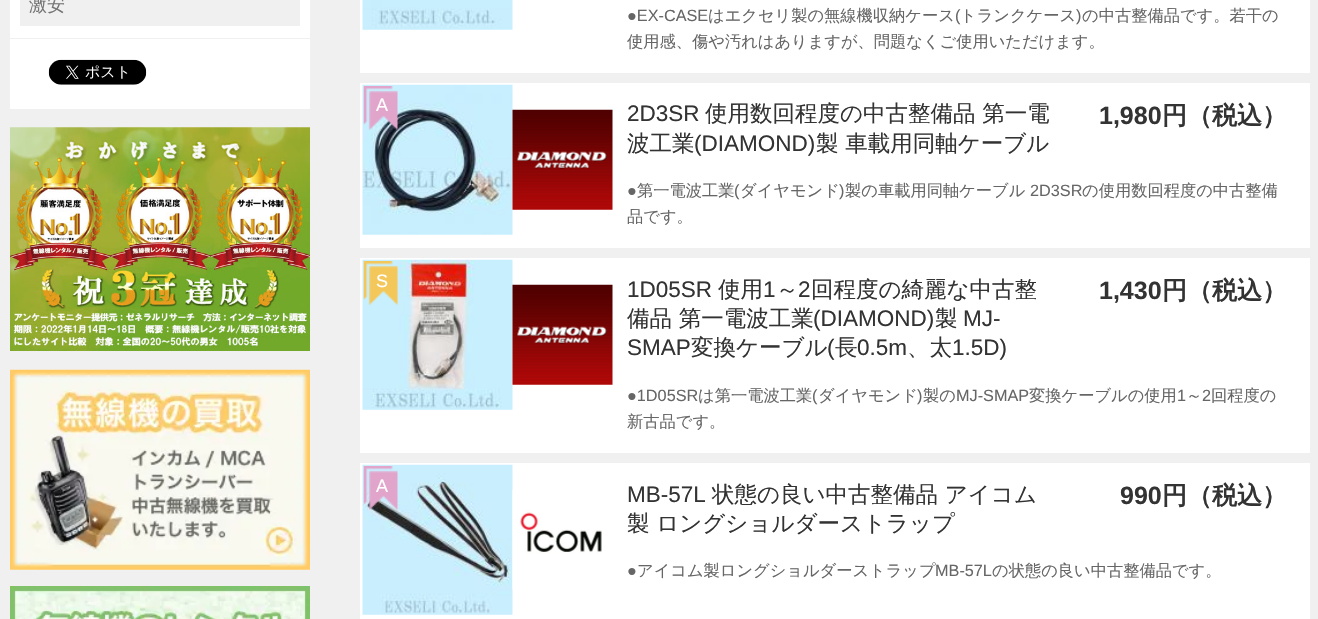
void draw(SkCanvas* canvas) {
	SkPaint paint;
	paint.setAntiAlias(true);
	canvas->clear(0xfff0f0f0);
	paint.setColor(0xffffffff);
	canvas->drawRect(SkRect::MakeXYWH(10, 0, 300, 38), paint);
	paint.setColor(0xfff0f0f0);
	canvas->drawRect(SkRect::MakeXYWH(20, 0, 280, 26), paint);
	SkFont f1(fontMgr->matchFamilyStyle("WenQuanYi Zen Hei", SkFontStyle(500, SkFontStyle::kNormal_Width, SkFontStyle::kUpright_Slant)), 18);
	f1.setSubpixel(true);
	paint.setColor(0xff757575);
	canvas->drawString("激安", 29, 11, f1, paint);
	paint.setColor(0xffffffff);
	canvas->drawRect(SkRect::MakeXYWH(10, 39, 300, 70), paint);
	canvas->drawImageRect(SkImages::DeferredFromEncodedData(SkData::MakeFromFileName("img1.png")), SkRect::MakeXYWH(48, 59, 99, 26), SkSamplingOptions());
	canvas->drawImageRect(SkImages::DeferredFromEncodedData(SkData::MakeFromFileName("img2.png")), SkRect::MakeXYWH(10, 127, 300, 224), SkSamplingOptions());
	canvas->drawImageRect(SkImages::DeferredFromEncodedData(SkData::MakeFromFileName("img3.png")), SkRect::MakeXYWH(10, 369, 300, 201), SkSamplingOptions());
	canvas->drawImageRect(SkImages::DeferredFromEncodedData(SkData::MakeFromFileName("img4.png")), SkRect::MakeXYWH(10, 586, 300, 33), SkSamplingOptions());
	canvas->drawRect(SkRect::MakeXYWH(360, 0, 950, 73), paint);
	canvas->drawImageRect(SkImages::DeferredFromEncodedData(SkData::MakeFromFileName("img5.png")), SkRect::MakeXYWH(362, 0, 151, 30), SkSamplingOptions());
	SkFont f2(fontMgr->matchFamilyStyle("Liberation Sans", SkFontStyle::Normal()), 16.25);
	f2.setSubpixel(true);
	paint.setColor(0xff666666);
	canvas->drawString("●EX-CASE", 627, 21, f2, paint);
	SkFont f3(fontMgr->matchFamilyStyle("WenQuanYi Zen Hei", SkFontStyle(500, SkFontStyle::kNormal_Width, SkFontStyle::kUpright_Slant)), 16.25);
	f3.setSubpixel(true);
	canvas->drawString("はエクセリ製の無線機収納ケース", 708, 21, f3, paint);
	canvas->drawString("(", 955, 21, f2, paint);
	canvas->drawString("トランクケース", 960, 21, f3, paint);
	canvas->drawString(")", 1076, 21, f2, paint);
	canvas->drawString("の中古整備品です。若干の", 1082, 21, f3, paint);
	canvas->drawString("使用感、傷や汚れはありますが、問題なくご使用いただけます。", 627, 47, f3, paint);
	paint.setColor(0xffffffff);
	canvas->drawRect(SkRect::MakeXYWH(360, 83, 950, 165), paint);
	canvas->drawImageRect(SkImages::DeferredFromEncodedData(SkData::MakeFromFileName("img6.png")), SkRect::MakeXYWH(362, 84, 151, 151), SkSamplingOptions());
	canvas->drawImageRect(SkImages::DeferredFromEncodedData(SkData::MakeFromFileName("img7.png")), SkRect::MakeXYWH(363, 86, 35, 44), SkSamplingOptions());
	SkFont f4(fontMgr->matchFamilyStyle("Liberation Sans", SkFontStyle::Normal()), 18);
	f4.setSubpixel(true);
	canvas->drawString("A", 376, 111, f4, paint);
	canvas->drawImageRect(SkImages::DeferredFromEncodedData(SkData::MakeFromFileName("img8.png")), SkRect::MakeXYWH(512, 109, 101, 101), SkSamplingOptions());
	SkFont f5(fontMgr->matchFamilyStyle("Liberation Sans", SkFontStyle::Normal()), 22.5);
	f5.setSubpixel(true);
	paint.setColor(0xff333333);
	canvas->drawString("2D3SR", 627, 121, f5, paint);
	SkFont f6(fontMgr->matchFamilyStyle("WenQuanYi Zen Hei", SkFontStyle(500, SkFontStyle::kNormal_Width, SkFontStyle::kUpright_Slant)), 22.5);
	f6.setSubpixel(true);
	canvas->drawString("使用数回程度の中古整備品 第一電", 705, 121, f6, paint);
	canvas->drawString("波工業", 627, 151, f6, paint);
	canvas->drawString("(DIAMOND)", 694, 151, f5, paint);
	canvas->drawString("製 車載用同軸ケーブル", 816, 151, f6, paint);
	SkFont f7(fontMgr->matchFamilyStyle("Liberation Sans", SkFontStyle::Bold()), 25);
	f7.setSubpixel(true);
	canvas->drawString("1,980", 1099, 124, f7, paint);
	SkFont f8(fontMgr->matchFamilyStyle("WenQuanYi Zen Hei", SkFontStyle::Bold()), 25);
	f8.setSubpixel(true);
	canvas->drawString("円（税込）", 1162, 124, f8, paint);
	paint.setColor(0xff666666);
	canvas->drawString("●", 627, 196, f2, paint);
	canvas->drawString("第一電波工業", 637, 196, f3, paint);
	canvas->drawString("(", 734, 196, f2, paint);
	canvas->drawString("ダイヤモンド", 740, 196, f3, paint);
	canvas->drawString(")", 839, 196, f2, paint);
	canvas->drawString("製の車載用同軸ケーブル", 845, 196, f3, paint);
	canvas->drawString("2D3SR", 1030, 196, f2, paint);
	canvas->drawString("の使用数回程度の中古整備", 1082, 196, f3, paint);
	canvas->drawString("品です。", 627, 222, f3, paint);
	paint.setColor(0xffffffff);
	canvas->drawRect(SkRect::MakeXYWH(360, 258, 950, 195), paint);
	canvas->drawImageRect(SkImages::DeferredFromEncodedData(SkData::MakeFromFileName("img9.png")), SkRect::MakeXYWH(362, 259, 151, 151), SkSamplingOptions());
	canvas->drawImageRect(SkImages::DeferredFromEncodedData(SkData::MakeFromFileName("img10.png")), SkRect::MakeXYWH(363, 261, 35, 44), SkSamplingOptions());
	canvas->drawString("S", 376, 287, f4, paint);
	canvas->drawImageRect(SkImages::DeferredFromEncodedData(SkData::MakeFromFileName("img11.png")), SkRect::MakeXYWH(512, 284, 101, 101), SkSamplingOptions());
	paint.setColor(0xff333333);
	canvas->drawString("1D05SR", 627, 297, f5, paint);
	canvas->drawString("使用", 718, 297, f6, paint);
	canvas->drawString("1", 763, 297, f5, paint);
	canvas->drawString("～", 776, 297, f6, paint);
	canvas->drawString("2", 798, 297, f5, paint);
	canvas->drawString("回程度の綺麗な中古整", 811, 297, f6, paint);
	canvas->drawString("備品 第一電波工業", 627, 326, f6, paint);
	canvas->drawString("(DIAMOND)", 813, 326, f5, paint);
	canvas->drawString("製", 935, 326, f6, paint);
	canvas->drawString("MJ-", 963, 326, f5, paint);
	canvas->drawString("SMAP", 627, 355, f5, paint);
	canvas->drawString("変換ケーブル", 691, 355, f6, paint);
	canvas->drawString("(", 827, 355, f5, paint);
	canvas->drawString("長", 835, 355, f6, paint);
	canvas->drawString("0.5m", 857, 355, f5, paint);
	canvas->drawString("、太", 907, 355, f6, paint);
	canvas->drawString("1.5D)", 952, 355, f5, paint);
	canvas->drawString("1,430", 1099, 299, f7, paint);
	canvas->drawString("円（税込）", 1162, 299, f8, paint);
	paint.setColor(0xff666666);
	canvas->drawString("●1D05SR", 627, 401, f2, paint);
	canvas->drawString("は第一電波工業", 698, 401, f3, paint);
	canvas->drawString("(", 812, 401, f2, paint);
	canvas->drawString("ダイヤモンド", 818, 401, f3, paint);
	canvas->drawString(")", 917, 401, f2, paint);
	canvas->drawString("製の", 923, 401, f3, paint);
	canvas->drawString("MJ-SMAP", 956, 401, f2, paint);
	canvas->drawString("変換ケーブルの使用", 1029, 401, f3, paint);
	canvas->drawString("1", 1177, 401, f2, paint);
	canvas->drawString("～", 1186, 401, f3, paint);
	canvas->drawString("2", 1202, 401, f2, paint);
	canvas->drawString("回程度の", 1211, 401, f3, paint);
	canvas->drawString("新古品です。", 627, 427, f3, paint);
	paint.setColor(0xffffffff);
	canvas->drawRect(SkRect::MakeXYWH(360, 463, 950, 156), paint);
	canvas->drawImageRect(SkImages::DeferredFromEncodedData(SkData::MakeFromFileName("img12.png")), SkRect::MakeXYWH(362, 464, 151, 151), SkSamplingOptions());
	canvas->drawImageRect(SkImages::DeferredFromEncodedData(SkData::MakeFromFileName("img13.png")), SkRect::MakeXYWH(363, 466, 35, 44), SkSamplingOptions());
	canvas->drawString("A", 376, 492, f4, paint);
	canvas->drawImageRect(SkImages::DeferredFromEncodedData(SkData::MakeFromFileName("img14.png")), SkRect::MakeXYWH(512, 490, 90, 100), SkSamplingOptions());
	paint.setColor(0xff333333);
	canvas->drawString("MB-57L", 627, 502, f5, paint);
	canvas->drawString("状態の良い中古整備品 アイコム", 712, 502, f6, paint);
	canvas->drawString("製 ロングショルダーストラップ", 627, 531, f6, paint);
	canvas->drawString("990", 1120, 504, f7, paint);
	canvas->drawString("円（税込）", 1162, 504, f8, paint);
	paint.setColor(0xff666666);
	canvas->drawString("●", 627, 576, f2, paint);
	canvas->drawString("アイコム製ロングショルダーストラップ", 637, 576, f3, paint);
	canvas->drawString("MB-57L", 935, 576, f2, paint);
	canvas->drawString("の状態の良い中古整備品です。", 992, 576, f3, paint);
}
